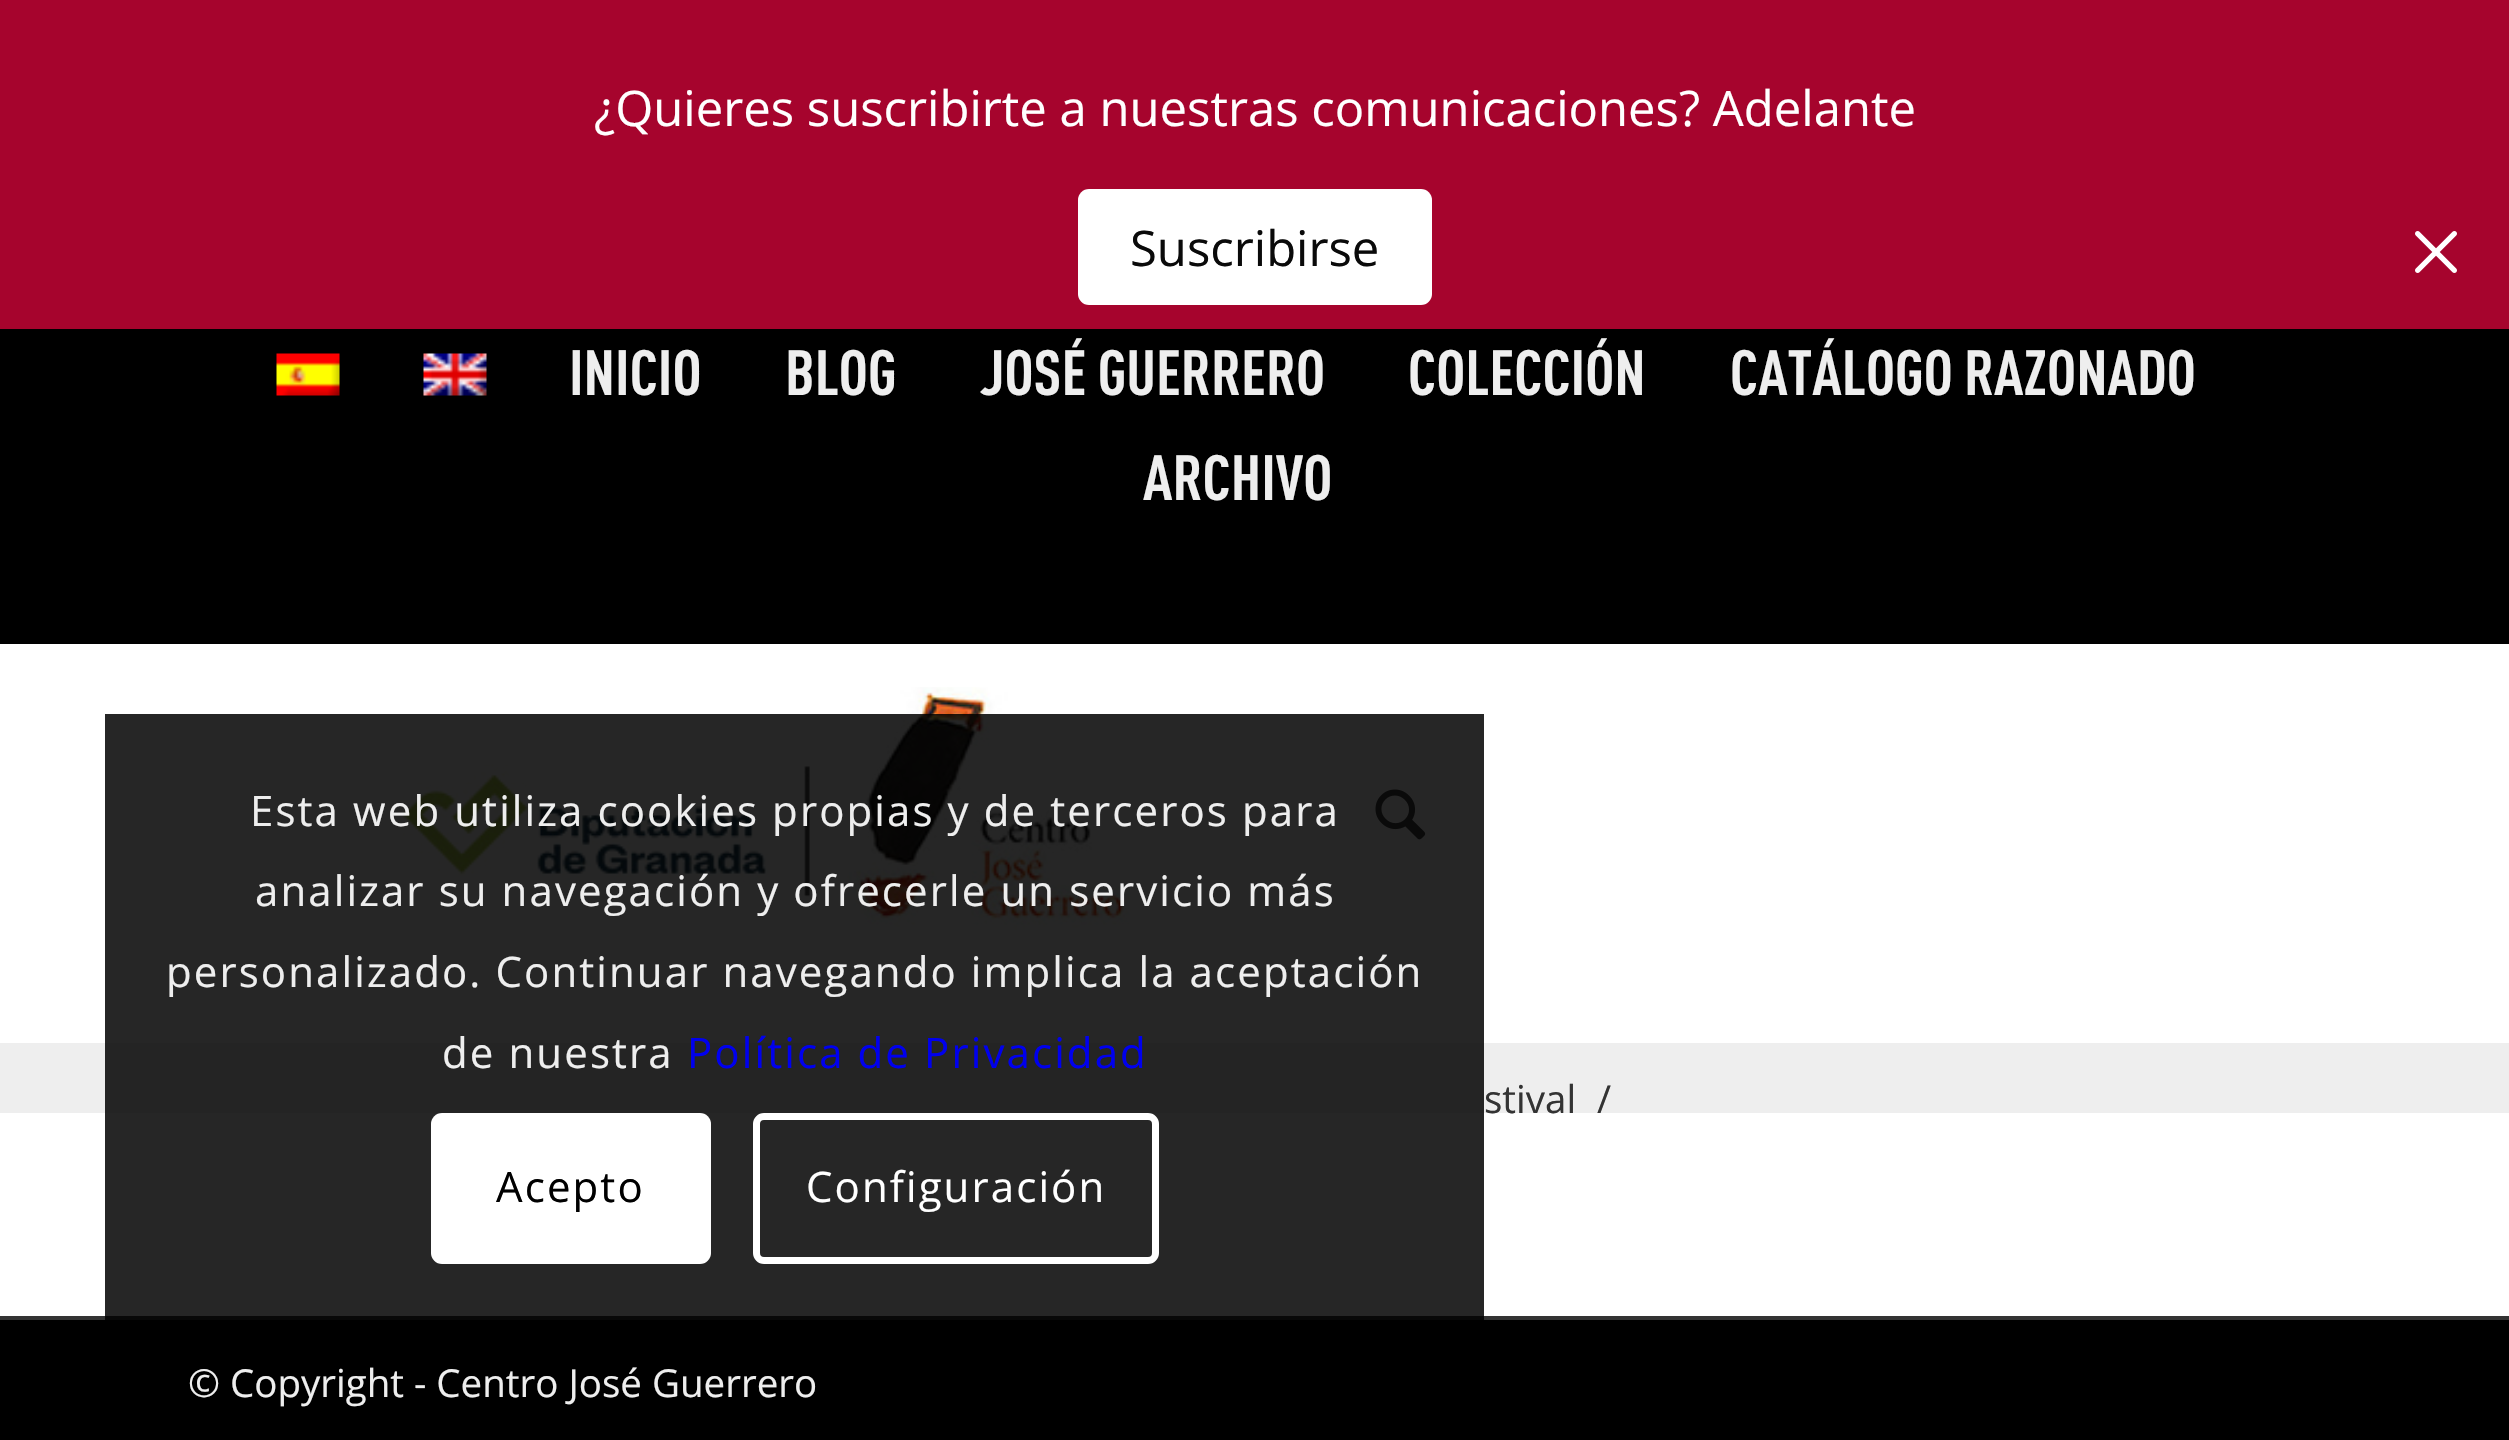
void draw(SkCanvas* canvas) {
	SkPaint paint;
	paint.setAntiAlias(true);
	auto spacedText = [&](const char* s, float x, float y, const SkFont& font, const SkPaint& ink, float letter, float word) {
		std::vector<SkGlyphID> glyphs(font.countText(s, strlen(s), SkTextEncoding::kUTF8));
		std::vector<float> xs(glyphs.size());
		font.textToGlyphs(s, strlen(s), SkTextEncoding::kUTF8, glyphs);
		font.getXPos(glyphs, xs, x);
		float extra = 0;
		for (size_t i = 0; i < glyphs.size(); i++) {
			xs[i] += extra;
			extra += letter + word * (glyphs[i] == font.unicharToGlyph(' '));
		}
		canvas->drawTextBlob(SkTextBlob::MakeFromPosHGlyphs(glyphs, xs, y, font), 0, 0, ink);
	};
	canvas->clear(0xffffffff);
	paint.setColor(0xffa6042d);
	canvas->drawRect(SkRect::MakeXYWH(0, 0, 2509, 329), paint);
	SkFont f1(fontMgr->matchFamilyStyle("Open Sans", SkFontStyle::Normal()), 49);
	f1.setSubpixel(true);
	paint.setColor(0xffffffff);
	canvas->drawString("¿Quieres suscribirte a nuestras comunicaciones? Adelante", 594, 126, f1, paint);
	canvas->drawRoundRect(SkRect::MakeXYWH(1078, 189, 354, 116), 11, 11, paint);
	paint.setColor(0xff0a0a0a);
	canvas->drawString("Suscribirse", 1130, 266, f1, paint);
	canvas->drawImageRect(SkImages::DeferredFromEncodedData(SkData::MakeFromFileName("img1.png")), SkRect::MakeXYWH(2415, 231, 42, 42), SkSamplingOptions());
	paint.setColor(0xff000000);
	canvas->drawRect(SkRect::MakeXYWH(0, 329, 2509, 315), paint);
	canvas->drawImageRect(SkImages::DeferredFromEncodedData(SkData::MakeFromFileName("img2.png")), SkRect::MakeXYWH(276, 353, 64, 43), SkSamplingOptions());
	canvas->drawImageRect(SkImages::DeferredFromEncodedData(SkData::MakeFromFileName("img3.png")), SkRect::MakeXYWH(423, 353, 64, 43), SkSamplingOptions());
	SkFont f2(fontMgr->matchFamilyStyle("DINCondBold", SkFontStyle::Bold()), 63);
	f2.setSubpixel(true);
	paint.setColor(0xffeeeeee);
	canvas->drawString("INICIO", 569, 395, f2, paint);
	canvas->drawString("BLOG", 785, 395, f2, paint);
	canvas->drawString("JOSÉ GUERRERO", 980, 395, f2, paint);
	canvas->drawString("COLECCIÓN", 1408, 395, f2, paint);
	canvas->drawString("CATÁLOGO RAZONADO", 1730, 395, f2, paint);
	canvas->drawString("ARCHIVO", 1143, 500, f2, paint);
	canvas->drawImageRect(SkImages::DeferredFromEncodedData(SkData::MakeFromFileName("img4.png")), SkRect::MakeXYWH(402, 687, 730, 244), SkSamplingOptions());
	canvas->drawImageRect(SkImages::DeferredFromEncodedData(SkData::MakeFromFileName("img5.png")), SkRect::MakeXYWH(1375, 789, 51, 51), SkSamplingOptions());
	canvas->drawRect(SkRect::MakeXYWH(0, 1043, 2509, 70), paint);
	SkFont f3(fontMgr->matchFamilyStyle("Open Sans", SkFontStyle::Normal()), 38.5);
	f3.setSubpixel(true);
	paint.setColor(0xff333333);
	canvas->drawString("stival", 1484, 1113, f3, paint);
	canvas->drawString("/", 1597, 1113, f3, paint);
	paint.setColor(0xff000000);
	canvas->drawRect(SkRect::MakeXYWH(0, 1320, 2509, 120), paint);
	paint.setColor(0xff333333);
	canvas->drawRect(SkRect::MakeXYWH(0, 1316, 2509, 4), paint);
	paint.setColor(0xffeeeeee);
	canvas->drawString("© Copyright - Centro José Guerrero", 188, 1397, f3, paint);
	paint.setColor(0xd9000000);
	canvas->drawRect(SkRect::MakeXYWH(105, 714, 1379, 606), paint);
	SkFont f4(fontMgr->matchFamilyStyle("Open Sans", SkFontStyle::Normal()), 42);
	f4.setSubpixel(true);
	paint.setColor(0xffeeeeee);
	spacedText("Esta web utiliza cookies propias y de terceros para", 250, 826, f4, paint, 2.1, 0);
	spacedText("analizar su navegación y ofrecerle un servicio más", 255, 906, f4, paint, 2.1, 0);
	spacedText("personalizado. Continuar navegando implica la aceptación", 166, 987, f4, paint, 2.1, 0);
	spacedText("de nuestra", 442, 1068, f4, paint, 2.1, 0);
	paint.setColor(0xff0000ee);
	spacedText("Política de Privacidad", 687, 1068, f4, paint, 2.1, 0);
	paint.setColor(0xffffffff);
	canvas->drawRoundRect(SkRect::MakeXYWH(431, 1113, 280, 151), 11, 11, paint);
	paint.setColor(0xff000000);
	spacedText("Acepto", 496, 1202, f4, paint, 2.1, 0);
	paint.setStroke(true);
	paint.setStrokeWidth(7);
	paint.setColor(0xffffffff);
	canvas->drawRoundRect(SkRect::MakeXYWH(756.5, 1116.5, 399, 144), 7.5, 7.5, paint);
	paint.setStroke(false);
	spacedText("Configuración", 806, 1202, f4, paint, 2.1, 0);
}
